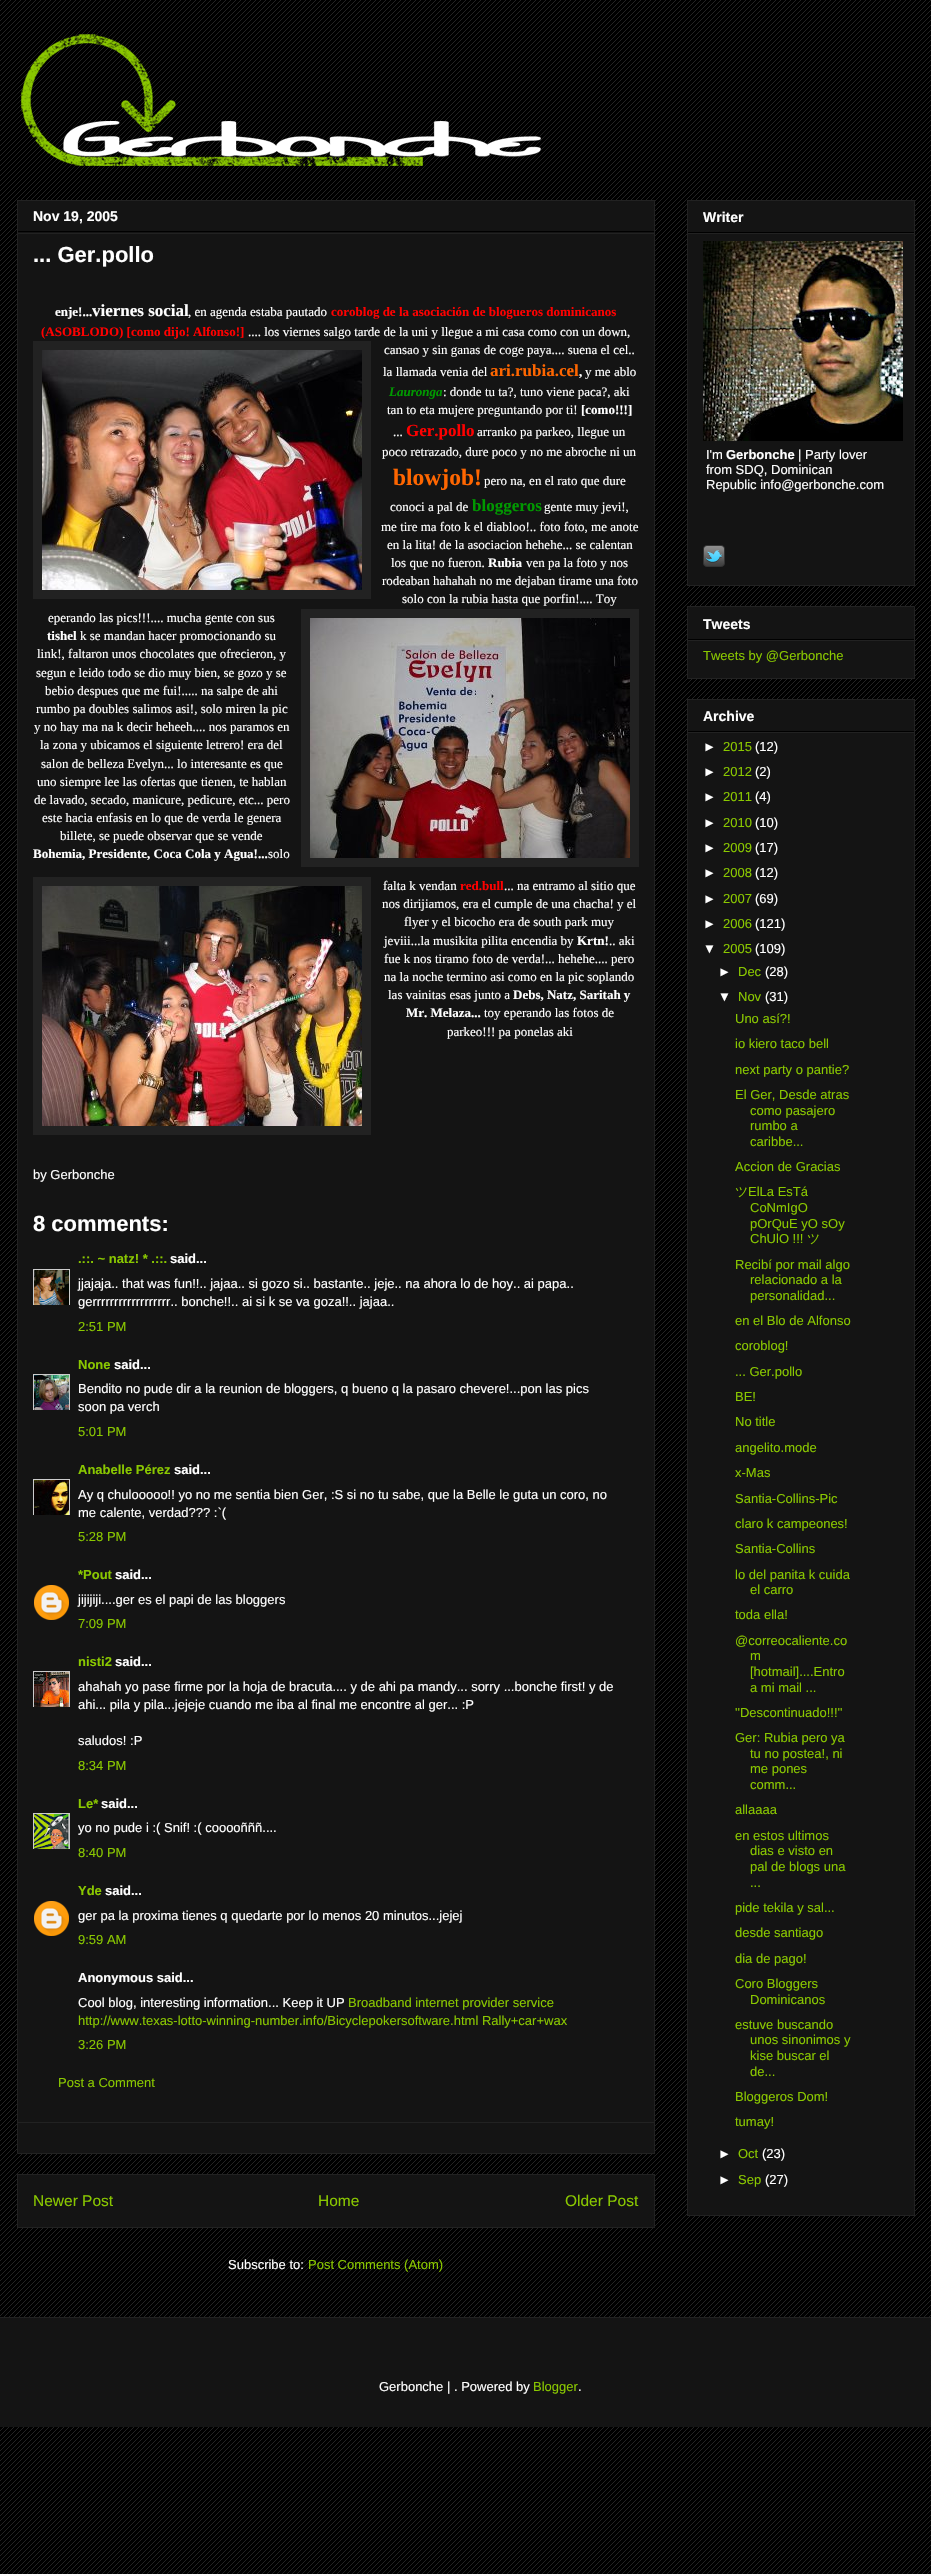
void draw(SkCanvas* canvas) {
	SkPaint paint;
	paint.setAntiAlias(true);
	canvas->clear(0xff000000);
	canvas->drawImageRect(SkImages::DeferredFromEncodedData(SkData::MakeFromFileName("img1.png")), SkRect::MakeXYWH(0, 0, 931, 2574), SkSamplingOptions());
	canvas->drawImageRect(SkImages::DeferredFromEncodedData(SkData::MakeFromFileName("img2.png")), SkRect::MakeXYWH(21, 34, 520, 132), SkSamplingOptions());
	paint.setColor(0xff141414);
	canvas->drawRect(SkRect::MakeXYWH(17.5, 200.5, 637, 1953), paint);
	paint.setStroke(true);
	paint.setStrokeWidth(1);
	paint.setColor(0xff222222);
	canvas->drawRect(SkRect::MakeXYWH(17.5, 200.5, 637, 1953), paint);
	paint.setStroke(false);
	paint.setColor(0xff000000);
	canvas->drawRect(SkRect::MakeXYWH(18, 231, 636, 1), paint);
	SkFont f1(fontMgr->matchFamilyStyle("Liberation Sans", SkFontStyle::Bold()), 14);
	f1.setSubpixel(true);
	paint.setColor(0xffffffff);
	canvas->drawString("Nov 19, 2005", 33, 221, f1, paint);
	paint.setColor(0xff222222);
	canvas->drawRect(SkRect::MakeXYWH(18, 233, 636, 1), paint);
	SkFont f2(fontMgr->matchFamilyStyle("Liberation Sans", SkFontStyle::Bold()), 22);
	f2.setSubpixel(true);
	paint.setColor(0xffffffff);
	canvas->drawString("... Ger.pollo", 33, 262, f2, paint);
	SkFont f3(fontMgr->matchFamilyStyle("Liberation Serif", SkFontStyle::Bold()), 13);
	f3.setSubpixel(true);
	canvas->drawString("enje!...", 55, 316, f3, paint);
	SkFont f4(fontMgr->matchFamilyStyle("Liberation Serif", SkFontStyle::Bold()), 17);
	f4.setSubpixel(true);
	canvas->drawString("viernes social", 92, 316, f4, paint);
	SkFont f5(fontMgr->matchFamilyStyle("Liberation Serif", SkFontStyle::Normal()), 13);
	f5.setSubpixel(true);
	canvas->drawString(", en agenda estaba pautado", 188, 316, f5, paint);
	paint.setColor(0xffff0000);
	canvas->drawString("coroblog de la asociación de blogueros dominicanos", 331, 316, f3, paint);
	canvas->drawString("(ASOBLODO) [como dijo! Alfonso!]", 41, 336, f3, paint);
	paint.setColor(0xffffffff);
	canvas->drawString(".... los viernes salgo tarde de la uni y llegue a mi casa como con un down,", 248, 336, f5, paint);
	paint.setColor(0xff222222);
	canvas->drawRect(SkRect::MakeXYWH(33, 341, 338, 258), paint);
	canvas->drawImageRect(SkImages::DeferredFromEncodedData(SkData::MakeFromFileName("img3.png")), SkRect::MakeXYWH(42, 350, 320, 240), SkSamplingOptions());
	paint.setColor(0xffffffff);
	canvas->drawString("cansao y sin ganas de coge paya.... suena el cel..", 384, 354, f5, paint);
	canvas->drawString("la llamada venia del", 383, 376, f5, paint);
	paint.setColor(0xffff6600);
	canvas->drawString("ari.rubia.cel", 490, 376, f4, paint);
	paint.setColor(0xffffffff);
	canvas->drawString(",", 579, 376, f3, paint);
	canvas->drawString("y me ablo", 585, 376, f5, paint);
	SkFont f6(fontMgr->matchFamilyStyle("Liberation Serif", SkFontStyle::BoldItalic()), 13);
	f6.setSubpixel(true);
	paint.setColor(0xff009900);
	canvas->drawString("Lauronga", 389, 396, f6, paint);
	paint.setColor(0xffffffff);
	canvas->drawString(": donde tu ta?, tuno viene paca?, aki", 443, 396, f5, paint);
	canvas->drawString("tan to eta mujere preguntando por ti!", 387, 414, f5, paint);
	canvas->drawString("[como!!!]", 581, 414, f3, paint);
	canvas->drawString("...", 393, 436, f5, paint);
	paint.setColor(0xffff0000);
	canvas->drawString("Ger.pollo", 406, 436, f4, paint);
	paint.setColor(0xffffffff);
	canvas->drawString("arranko pa parkeo, llegue un", 477, 436, f5, paint);
	canvas->drawString("poco retrazado, dure poco y no me abroche ni un", 382, 456, f5, paint);
	SkFont f7(fontMgr->matchFamilyStyle("Liberation Serif", SkFontStyle::Bold()), 23.5);
	f7.setSubpixel(true);
	paint.setColor(0xffff6600);
	canvas->drawString("blowjob!", 393, 485, f7, paint);
	paint.setColor(0xffffffff);
	canvas->drawString("pero na, en el rato que dure", 484, 485, f5, paint);
	canvas->drawString("conoci a pal de", 390, 511, f5, paint);
	paint.setColor(0xff009900);
	canvas->drawString("bloggeros", 472, 511, f4, paint);
	paint.setColor(0xffffffff);
	canvas->drawString("gente muy jevi!,", 544, 511, f5, paint);
	canvas->drawString("me tire ma foto k el diabloo!.. foto foto, me anote", 381, 531, f5, paint);
	canvas->drawString("en la lita! de la asociacion hehehe... se calentan", 387, 549, f5, paint);
	canvas->drawString("los que no fueron.", 391, 567, f5, paint);
	canvas->drawString("Rubia", 488, 567, f3, paint);
	canvas->drawString("ven pa la foto y nos", 526, 567, f5, paint);
	canvas->drawString("rodeaban hahahah no me dejaban tirame una foto", 382, 585, f5, paint);
	canvas->drawString("solo con la rubia hasta que porfin!.... Toy", 402, 603, f5, paint);
	canvas->drawString("eperando las pics!!!.... mucha gente con sus", 48, 622, f5, paint);
	paint.setColor(0xff222222);
	canvas->drawRect(SkRect::MakeXYWH(301, 609, 338, 258), paint);
	canvas->drawImageRect(SkImages::DeferredFromEncodedData(SkData::MakeFromFileName("img4.png")), SkRect::MakeXYWH(310, 618, 320, 240), SkSamplingOptions());
	paint.setColor(0xffffffff);
	canvas->drawString("tishel", 47, 640, f3, paint);
	canvas->drawString("k se mandan hacer promocionando su", 80, 640, f5, paint);
	canvas->drawString("link!, faltaron unos chocolates que ofrecieron, y", 37, 658, f5, paint);
	canvas->drawString("segun e leido todo se dio muy bien, se gozo y se", 36, 677, f5, paint);
	canvas->drawString("bebio despues que me fui!..... na salpe de ahi", 45, 695, f5, paint);
	canvas->drawString("rumbo pa doubles salimos asi!, solo miren la pic", 36, 713, f5, paint);
	canvas->drawString("y no hay ma na k decir heheeh.... nos paramos en", 34, 731, f5, paint);
	canvas->drawString("la zona y ubicamos el siguiente letrero! era del", 40, 749, f5, paint);
	canvas->drawString("salon de belleza Evelyn... lo interesante es que", 41, 768, f5, paint);
	canvas->drawString("uno siempre lee las ofertas que tienen, te hablan", 37, 786, f5, paint);
	canvas->drawString("de lavado, secado, manicure, pedicure, etc... pero", 34, 804, f5, paint);
	canvas->drawString("este hacia enfasis en lo que de verda le genera", 42, 822, f5, paint);
	canvas->drawString("billete, se puede observar que se vende", 60, 840, f5, paint);
	canvas->drawString("Bohemia, Presidente, Coca Cola y Agua!...", 33, 858, f3, paint);
	paint.setColor(0xff222222);
	canvas->drawRect(SkRect::MakeXYWH(33, 877, 338, 258), paint);
	canvas->drawImageRect(SkImages::DeferredFromEncodedData(SkData::MakeFromFileName("img5.png")), SkRect::MakeXYWH(42, 886, 320, 240), SkSamplingOptions());
	paint.setColor(0xffffffff);
	canvas->drawString("solo", 268, 858, f5, paint);
	canvas->drawString("falta k vendan", 383, 890, f5, paint);
	paint.setColor(0xffff0000);
	canvas->drawString("red.bull", 460, 890, f3, paint);
	paint.setColor(0xffffffff);
	canvas->drawString("... na entramo al sitio que", 504, 890, f5, paint);
	canvas->drawString("nos dirijiamos, era el cumple de una chacha! y el", 382, 908, f5, paint);
	canvas->drawString("flyer y el bicocho era de south park muy", 404, 926, f5, paint);
	canvas->drawString("jeviii...la musikita pilita encendia by", 384, 945, f5, paint);
	canvas->drawString("Krtn!", 577, 945, f3, paint);
	canvas->drawString(".. aki", 609, 945, f5, paint);
	canvas->drawString("fue k nos tiramo foto de verda!... hehehe.... pero", 384, 963, f5, paint);
	canvas->drawString("na la noche termino asi como en la pic soplando", 384, 981, f5, paint);
	canvas->drawString("las vainitas esas junto a", 388, 999, f5, paint);
	canvas->drawString("Debs, Natz, Saritah y", 513, 999, f3, paint);
	canvas->drawString("Mr. Melaza...", 406, 1017, f3, paint);
	canvas->drawString("toy eperando las fotos de", 484, 1017, f5, paint);
	canvas->drawString("parkeo!!! pa ponelas aki", 447, 1036, f5, paint);
	SkFont f8(fontMgr->matchFamilyStyle("Liberation Sans", SkFontStyle::Normal()), 13);
	f8.setSubpixel(true);
	canvas->drawString("by Gerbonche", 33, 1179, f8, paint);
	canvas->drawString("8 comments:", 33, 1231, f2, paint);
	SkFont f9(fontMgr->matchFamilyStyle("Liberation Sans", SkFontStyle::Bold()), 13);
	f9.setSubpixel(true);
	paint.setColor(0xff8ac800);
	canvas->drawString(".::. ~ natz! * .::.", 78, 1263, f9, paint);
	paint.setColor(0xffffffff);
	canvas->drawString("said...", 170, 1263, f9, paint);
	canvas->save();
	canvas->clipRect(SkRect::MakeXYWH(33, 1269, 37, 36));
	paint.setStroke(true);
	paint.setColor(0xffcccccc);
	canvas->drawRect(SkRect::MakeXYWH(33.5, 1269.5, 36, 36), paint);
	canvas->restore();
	canvas->drawImageRect(SkImages::DeferredFromEncodedData(SkData::MakeFromFileName("img6.png")), SkRect::MakeXYWH(34, 1270, 35, 35), SkSamplingOptions());
	paint.setStroke(false);
	paint.setColor(0xffffffff);
	canvas->drawString("jjajaja.. that was fun!!.. jajaa.. si gozo si.. bastante.. jeje.. na ahora lo de hoy.. ai papa..", 78, 1288, f8, paint);
	canvas->drawString("gerrrrrrrrrrrrrrrrrr.. bonche!!.. ai si k se va goza!!.. jajaa..", 78, 1306, f8, paint);
	paint.setColor(0xff8ac800);
	canvas->drawString("2:51 PM", 78, 1331, f8, paint);
	canvas->drawString("None", 78, 1369, f9, paint);
	paint.setColor(0xffffffff);
	canvas->drawString("said...", 114, 1369, f9, paint);
	canvas->save();
	canvas->clipRect(SkRect::MakeXYWH(33, 1374, 37, 36));
	paint.setStroke(true);
	paint.setColor(0xffcccccc);
	canvas->drawRect(SkRect::MakeXYWH(33.5, 1374.5, 36, 36), paint);
	canvas->restore();
	canvas->drawImageRect(SkImages::DeferredFromEncodedData(SkData::MakeFromFileName("img7.png")), SkRect::MakeXYWH(34, 1375, 35, 35), SkSamplingOptions());
	paint.setStroke(false);
	paint.setColor(0xffffffff);
	canvas->drawString("Bendito no pude dir a la reunion de bloggers, q bueno q la pasaro chevere!...pon las pics", 78, 1393, f8, paint);
	canvas->drawString("soon pa verch", 78, 1411, f8, paint);
	paint.setColor(0xff8ac800);
	canvas->drawString("5:01 PM", 78, 1436, f8, paint);
	canvas->drawString("Anabelle Pérez", 78, 1474, f9, paint);
	paint.setColor(0xffffffff);
	canvas->drawString("said...", 174, 1474, f9, paint);
	canvas->save();
	canvas->clipRect(SkRect::MakeXYWH(33, 1479, 37, 36));
	paint.setStroke(true);
	paint.setColor(0xffcccccc);
	canvas->drawRect(SkRect::MakeXYWH(33.5, 1479.5, 36, 36), paint);
	canvas->restore();
	canvas->drawImageRect(SkImages::DeferredFromEncodedData(SkData::MakeFromFileName("img8.png")), SkRect::MakeXYWH(34, 1480, 35, 35), SkSamplingOptions());
	paint.setStroke(false);
	paint.setColor(0xffffffff);
	canvas->drawString("Ay q chulooooo!! yo no me sentia bien Ger, :S si no tu sabe, que la Belle le guta un coro, no", 78, 1499, f8, paint);
	canvas->drawString("me calente, verdad?\077? :`(", 78, 1517, f8, paint);
	paint.setColor(0xff8ac800);
	canvas->drawString("5:28 PM", 78, 1541, f8, paint);
	canvas->drawString("*Pout", 78, 1579, f9, paint);
	paint.setColor(0xffffffff);
	canvas->drawString("said...", 115, 1579, f9, paint);
	canvas->drawImageRect(SkImages::DeferredFromEncodedData(SkData::MakeFromFileName("img9.png")), SkRect::MakeXYWH(34, 1585, 35, 35), SkSamplingOptions());
	canvas->drawString("jijijiji....ger es el papi de las bloggers", 78, 1604, f8, paint);
	paint.setColor(0xff8ac800);
	canvas->drawString("7:09 PM", 78, 1628, f8, paint);
	canvas->drawString("nisti2", 78, 1666, f9, paint);
	paint.setColor(0xffffffff);
	canvas->drawString("said...", 115, 1666, f9, paint);
	canvas->save();
	canvas->clipRect(SkRect::MakeXYWH(33, 1671, 37, 36));
	paint.setStroke(true);
	paint.setColor(0xffcccccc);
	canvas->drawRect(SkRect::MakeXYWH(33.5, 1671.5, 36, 36), paint);
	canvas->restore();
	canvas->drawImageRect(SkImages::DeferredFromEncodedData(SkData::MakeFromFileName("img10.png")), SkRect::MakeXYWH(34, 1672, 35, 35), SkSamplingOptions());
	paint.setStroke(false);
	paint.setColor(0xffffffff);
	canvas->drawString("ahahah yo pase firme por la hoja de bracuta.... y de ahi pa mandy... sorry ...bonche first! y de", 78, 1691, f8, paint);
	canvas->drawString("ahi... pila y pila...jejeje cuando me iba al final me encontre al ger... :P", 78, 1709, f8, paint);
	canvas->drawString("saludos! :P", 78, 1745, f8, paint);
	paint.setColor(0xff8ac800);
	canvas->drawString("8:34 PM", 78, 1770, f8, paint);
	canvas->drawString("Le*", 78, 1808, f9, paint);
	paint.setColor(0xffffffff);
	canvas->drawString("said...", 101, 1808, f9, paint);
	canvas->save();
	canvas->clipRect(SkRect::MakeXYWH(33, 1813, 37, 36));
	paint.setStroke(true);
	paint.setColor(0xffcccccc);
	canvas->drawRect(SkRect::MakeXYWH(33.5, 1813.5, 36, 36), paint);
	canvas->restore();
	canvas->drawImageRect(SkImages::DeferredFromEncodedData(SkData::MakeFromFileName("img11.png")), SkRect::MakeXYWH(34, 1814, 35, 35), SkSamplingOptions());
	paint.setStroke(false);
	paint.setColor(0xffffffff);
	canvas->drawString("yo no pude i :( Snif! :( cooooñññ....", 78, 1832, f8, paint);
	paint.setColor(0xff8ac800);
	canvas->drawString("8:40 PM", 78, 1857, f8, paint);
	canvas->drawString("Yde", 78, 1895, f9, paint);
	paint.setColor(0xffffffff);
	canvas->drawString("said...", 105, 1895, f9, paint);
	canvas->drawImageRect(SkImages::DeferredFromEncodedData(SkData::MakeFromFileName("img9.png")), SkRect::MakeXYWH(34, 1901, 35, 35), SkSamplingOptions());
	canvas->drawString("ger pa la proxima tienes q quedarte por lo menos 20 minutos...jejej", 78, 1920, f8, paint);
	paint.setColor(0xff8ac800);
	canvas->drawString("9:59 AM", 78, 1944, f8, paint);
	paint.setColor(0xffffffff);
	canvas->drawString("Anonymous said...", 78, 1982, f9, paint);
	canvas->drawString("Cool blog, interesting information... Keep it UP", 78, 2007, f8, paint);
	paint.setColor(0xff8ac800);
	canvas->drawString("Broadband internet provider service", 348, 2007, f8, paint);
	canvas->drawString("http://www.texas-lotto-winning-number.info/Bicyclepokersoftware.html Rally+car+wax", 78, 2025, f8, paint);
	canvas->drawString("3:26 PM", 78, 2049, f8, paint);
	canvas->drawString("Post a Comment", 58, 2087, f8, paint);
	paint.setColor(0xff222222);
	canvas->drawRect(SkRect::MakeXYWH(18, 2122, 636, 1), paint);
	paint.setColor(0xff141414);
	canvas->drawRect(SkRect::MakeXYWH(17.5, 2174.5, 637, 53), paint);
	paint.setStroke(true);
	paint.setColor(0xff222222);
	canvas->drawRect(SkRect::MakeXYWH(17.5, 2174.5, 637, 53), paint);
	SkFont f10(fontMgr->matchFamilyStyle("Liberation Sans", SkFontStyle::Normal()), 15.5);
	f10.setSubpixel(true);
	paint.setStroke(false);
	paint.setColor(0xff8ac800);
	canvas->drawString("Newer Post", 33, 2206, f10, paint);
	canvas->drawString("Home", 318, 2206, f10, paint);
	canvas->drawString("Older Post", 565, 2206, f10, paint);
	paint.setColor(0xffffffff);
	canvas->drawString("Subscribe to:", 228, 2269, f8, paint);
	paint.setColor(0xff8ac800);
	canvas->drawString("Post Comments (Atom)", 308, 2269, f8, paint);
	paint.setColor(0xff141414);
	canvas->drawRect(SkRect::MakeXYWH(687.5, 200.5, 227, 385), paint);
	paint.setStroke(true);
	paint.setColor(0xff222222);
	canvas->drawRect(SkRect::MakeXYWH(687.5, 200.5, 227, 385), paint);
	paint.setStroke(false);
	paint.setColor(0xff000000);
	canvas->drawRect(SkRect::MakeXYWH(688, 232, 226, 1), paint);
	paint.setColor(0xffffffff);
	canvas->drawString("Writer", 703, 222, f1, paint);
	paint.setColor(0xff222222);
	canvas->drawRect(SkRect::MakeXYWH(688, 233, 226, 1), paint);
	canvas->drawImageRect(SkImages::DeferredFromEncodedData(SkData::MakeFromFileName("img12.png")), SkRect::MakeXYWH(703, 241, 200, 200), SkSamplingOptions());
	paint.setColor(0xffffffff);
	canvas->drawString("I'm", 706, 459, f8, paint);
	canvas->drawString("Gerbonche", 726, 459, f9, paint);
	canvas->drawString("| Party lover", 798, 459, f8, paint);
	canvas->drawString("from SDQ, Dominican", 706, 474, f8, paint);
	canvas->drawString("Republic info@gerbonche.com", 706, 489, f8, paint);
	canvas->drawImageRect(SkImages::DeferredFromEncodedData(SkData::MakeFromFileName("img13.png")), SkRect::MakeXYWH(703, 545, 22, 22), SkSamplingOptions());
	paint.setColor(0xff141414);
	canvas->drawRect(SkRect::MakeXYWH(687.5, 606.5, 227, 72), paint);
	paint.setStroke(true);
	paint.setColor(0xff222222);
	canvas->drawRect(SkRect::MakeXYWH(687.5, 606.5, 227, 72), paint);
	paint.setStroke(false);
	paint.setColor(0xff000000);
	canvas->drawRect(SkRect::MakeXYWH(688, 639, 226, 1), paint);
	paint.setColor(0xffffffff);
	canvas->drawString("Tweets", 703, 629, f1, paint);
	paint.setColor(0xff222222);
	canvas->drawRect(SkRect::MakeXYWH(688, 640, 226, 1), paint);
	paint.setColor(0xff8ac800);
	canvas->drawString("Tweets by @Gerbonche", 703, 660, f8, paint);
	paint.setColor(0xff141414);
	canvas->drawRect(SkRect::MakeXYWH(687.5, 699.5, 227, 1516), paint);
	paint.setStroke(true);
	paint.setColor(0xff222222);
	canvas->drawRect(SkRect::MakeXYWH(687.5, 699.5, 227, 1516), paint);
	paint.setStroke(false);
	paint.setColor(0xff000000);
	canvas->drawRect(SkRect::MakeXYWH(688, 731, 226, 1), paint);
	paint.setColor(0xffffffff);
	canvas->drawString("Archive", 703, 721, f1, paint);
	paint.setColor(0xff222222);
	canvas->drawRect(SkRect::MakeXYWH(688, 732, 226, 1), paint);
	paint.setColor(0xffffffff);
	canvas->drawString("►", 703, 751, f8, paint);
	paint.setColor(0xff8ac800);
	canvas->drawString("2015", 723, 751, f8, paint);
	paint.setColor(0xffffffff);
	canvas->drawString("(12)", 755, 751, f8, paint);
	canvas->drawString("►", 703, 776, f8, paint);
	paint.setColor(0xff8ac800);
	canvas->drawString("2012", 723, 776, f8, paint);
	paint.setColor(0xffffffff);
	canvas->drawString("(2)", 755, 776, f8, paint);
	canvas->drawString("►", 703, 801, f8, paint);
	paint.setColor(0xff8ac800);
	canvas->drawString("2011", 723, 801, f8, paint);
	paint.setColor(0xffffffff);
	canvas->drawString("(4)", 755, 801, f8, paint);
	canvas->drawString("►", 703, 827, f8, paint);
	paint.setColor(0xff8ac800);
	canvas->drawString("2010", 723, 827, f8, paint);
	paint.setColor(0xffffffff);
	canvas->drawString("(10)", 755, 827, f8, paint);
	canvas->drawString("►", 703, 852, f8, paint);
	paint.setColor(0xff8ac800);
	canvas->drawString("2009", 723, 852, f8, paint);
	paint.setColor(0xffffffff);
	canvas->drawString("(17)", 755, 852, f8, paint);
	canvas->drawString("►", 703, 877, f8, paint);
	paint.setColor(0xff8ac800);
	canvas->drawString("2008", 723, 877, f8, paint);
	paint.setColor(0xffffffff);
	canvas->drawString("(12)", 755, 877, f8, paint);
	canvas->drawString("►", 703, 903, f8, paint);
	paint.setColor(0xff8ac800);
	canvas->drawString("2007", 723, 903, f8, paint);
	paint.setColor(0xffffffff);
	canvas->drawString("(69)", 755, 903, f8, paint);
	canvas->drawString("►", 703, 928, f8, paint);
	paint.setColor(0xff8ac800);
	canvas->drawString("2006", 723, 928, f8, paint);
	paint.setColor(0xffffffff);
	canvas->drawString("(121)", 755, 928, f8, paint);
	canvas->drawString("▼", 703, 953, f8, paint);
	paint.setColor(0xff8ac800);
	canvas->drawString("2005", 723, 953, f8, paint);
	paint.setColor(0xffffffff);
	canvas->drawString("(109)", 755, 953, f8, paint);
	canvas->drawString("►", 718, 976, f8, paint);
	paint.setColor(0xff8ac800);
	canvas->drawString("Dec", 738, 976, f8, paint);
	paint.setColor(0xffffffff);
	canvas->drawString("(28)", 765, 976, f8, paint);
	canvas->drawString("▼", 718, 1001, f8, paint);
	paint.setColor(0xff8ac800);
	canvas->drawString("Nov", 738, 1001, f8, paint);
	paint.setColor(0xffffffff);
	canvas->drawString("(31)", 765, 1001, f8, paint);
	paint.setColor(0xff8ac800);
	canvas->drawString("Uno así?!", 735, 1023, f8, paint);
	canvas->drawString("io kiero taco bell", 735, 1048, f8, paint);
	canvas->drawString("next party o pantie?", 735, 1074, f8, paint);
	canvas->drawString("El Ger, Desde atras", 735, 1099, f8, paint);
	canvas->drawString("como pasajero", 750, 1115, f8, paint);
	canvas->drawString("rumbo a", 750, 1130, f8, paint);
	canvas->drawString("caribbe...", 750, 1146, f8, paint);
	canvas->drawString("Accion de Gracias", 735, 1171, f8, paint);
	SkFont f11(fontMgr->matchFamilyStyle("WenQuanYi Zen Hei", SkFontStyle(500, SkFontStyle::kNormal_Width, SkFontStyle::kUpright_Slant)), 13);
	f11.setSubpixel(true);
	canvas->drawString("ツ", 735, 1196, f11, paint);
	canvas->drawString("ElLa EsTá", 748, 1196, f8, paint);
	canvas->drawString("CoNmIgO", 750, 1212, f8, paint);
	canvas->drawString("pOrQuE yO sOy", 750, 1228, f8, paint);
	canvas->drawString("ChUlO !!!", 750, 1243, f8, paint);
	canvas->drawString("ツ", 807, 1243, f11, paint);
	canvas->drawString("Recibí por mail algo", 735, 1269, f8, paint);
	canvas->drawString("relacionado a la", 750, 1284, f8, paint);
	canvas->drawString("personalidad...", 750, 1300, f8, paint);
	canvas->drawString("en el Blo de Alfonso", 735, 1325, f8, paint);
	canvas->drawString("coroblog!", 735, 1350, f8, paint);
	canvas->drawString("... Ger.pollo", 735, 1376, f8, paint);
	canvas->drawString("BE!", 735, 1401, f8, paint);
	canvas->drawString("No title", 735, 1426, f8, paint);
	canvas->drawString("angelito.mode", 735, 1452, f8, paint);
	canvas->drawString("x-Mas", 735, 1477, f8, paint);
	canvas->drawString("Santia-Collins-Pic", 735, 1503, f8, paint);
	canvas->drawString("claro k campeones!", 735, 1528, f8, paint);
	canvas->drawString("Santia-Collins", 735, 1553, f8, paint);
	canvas->drawString("lo del panita k cuida", 735, 1579, f8, paint);
	canvas->drawString("el carro", 750, 1594, f8, paint);
	canvas->drawString("toda ella!", 735, 1619, f8, paint);
	canvas->drawString("@correocaliente.co", 735, 1645, f8, paint);
	canvas->drawString("m", 750, 1660, f8, paint);
	canvas->drawString("[hotmail]....Entro", 750, 1676, f8, paint);
	canvas->drawString("a mi mail ...", 750, 1692, f8, paint);
	canvas->drawString("''Descontinuado!!!''", 735, 1717, f8, paint);
	canvas->drawString("Ger: Rubia pero ya", 735, 1742, f8, paint);
	canvas->drawString("tu no postea!, ni", 750, 1758, f8, paint);
	canvas->drawString("me pones", 750, 1773, f8, paint);
	canvas->drawString("comm...", 750, 1789, f8, paint);
	canvas->drawString("allaaaa", 735, 1814, f8, paint);
	canvas->drawString("en estos ultimos", 735, 1840, f8, paint);
	canvas->drawString("dias e visto en", 750, 1855, f8, paint);
	canvas->drawString("pal de blogs una", 750, 1871, f8, paint);
	canvas->drawString("...", 750, 1887, f8, paint);
	canvas->drawString("pide tekila y sal...", 735, 1912, f8, paint);
	canvas->drawString("desde santiago", 735, 1937, f8, paint);
	canvas->drawString("dia de pago!", 735, 1963, f8, paint);
	canvas->drawString("Coro Bloggers", 735, 1988, f8, paint);
	canvas->drawString("Dominicanos", 750, 2004, f8, paint);
	canvas->drawString("estuve buscando", 735, 2029, f8, paint);
	canvas->drawString("unos sinonimos y", 750, 2044, f8, paint);
	canvas->drawString("kise buscar el", 750, 2060, f8, paint);
	canvas->drawString("de...", 750, 2076, f8, paint);
	canvas->drawString("Bloggeros Dom!", 735, 2101, f8, paint);
	canvas->drawString("tumay!", 735, 2126, f8, paint);
	paint.setColor(0xffffffff);
	canvas->drawString("►", 718, 2158, f8, paint);
	paint.setColor(0xff8ac800);
	canvas->drawString("Oct", 738, 2158, f8, paint);
	paint.setColor(0xffffffff);
	canvas->drawString("(23)", 762, 2158, f8, paint);
	canvas->drawString("►", 718, 2184, f8, paint);
	paint.setColor(0xff8ac800);
	canvas->drawString("Sep", 738, 2184, f8, paint);
	paint.setColor(0xffffffff);
	canvas->drawString("(27)", 765, 2184, f8, paint);
	paint.setColor(0xff141414);
	canvas->drawRect(SkRect::MakeXYWH(0, 2318, 931, 109), paint);
	paint.setColor(0xff222222);
	canvas->drawRect(SkRect::MakeXYWH(0, 2317, 931, 1), paint);
	paint.setColor(0xffffffff);
	canvas->drawString("Gerbonche | . Powered by", 379, 2391, f8, paint);
	paint.setColor(0xff8ac800);
	canvas->drawString("Blogger", 533, 2391, f8, paint);
	paint.setColor(0xffffffff);
	canvas->drawString(".", 578, 2391, f8, paint);
}
